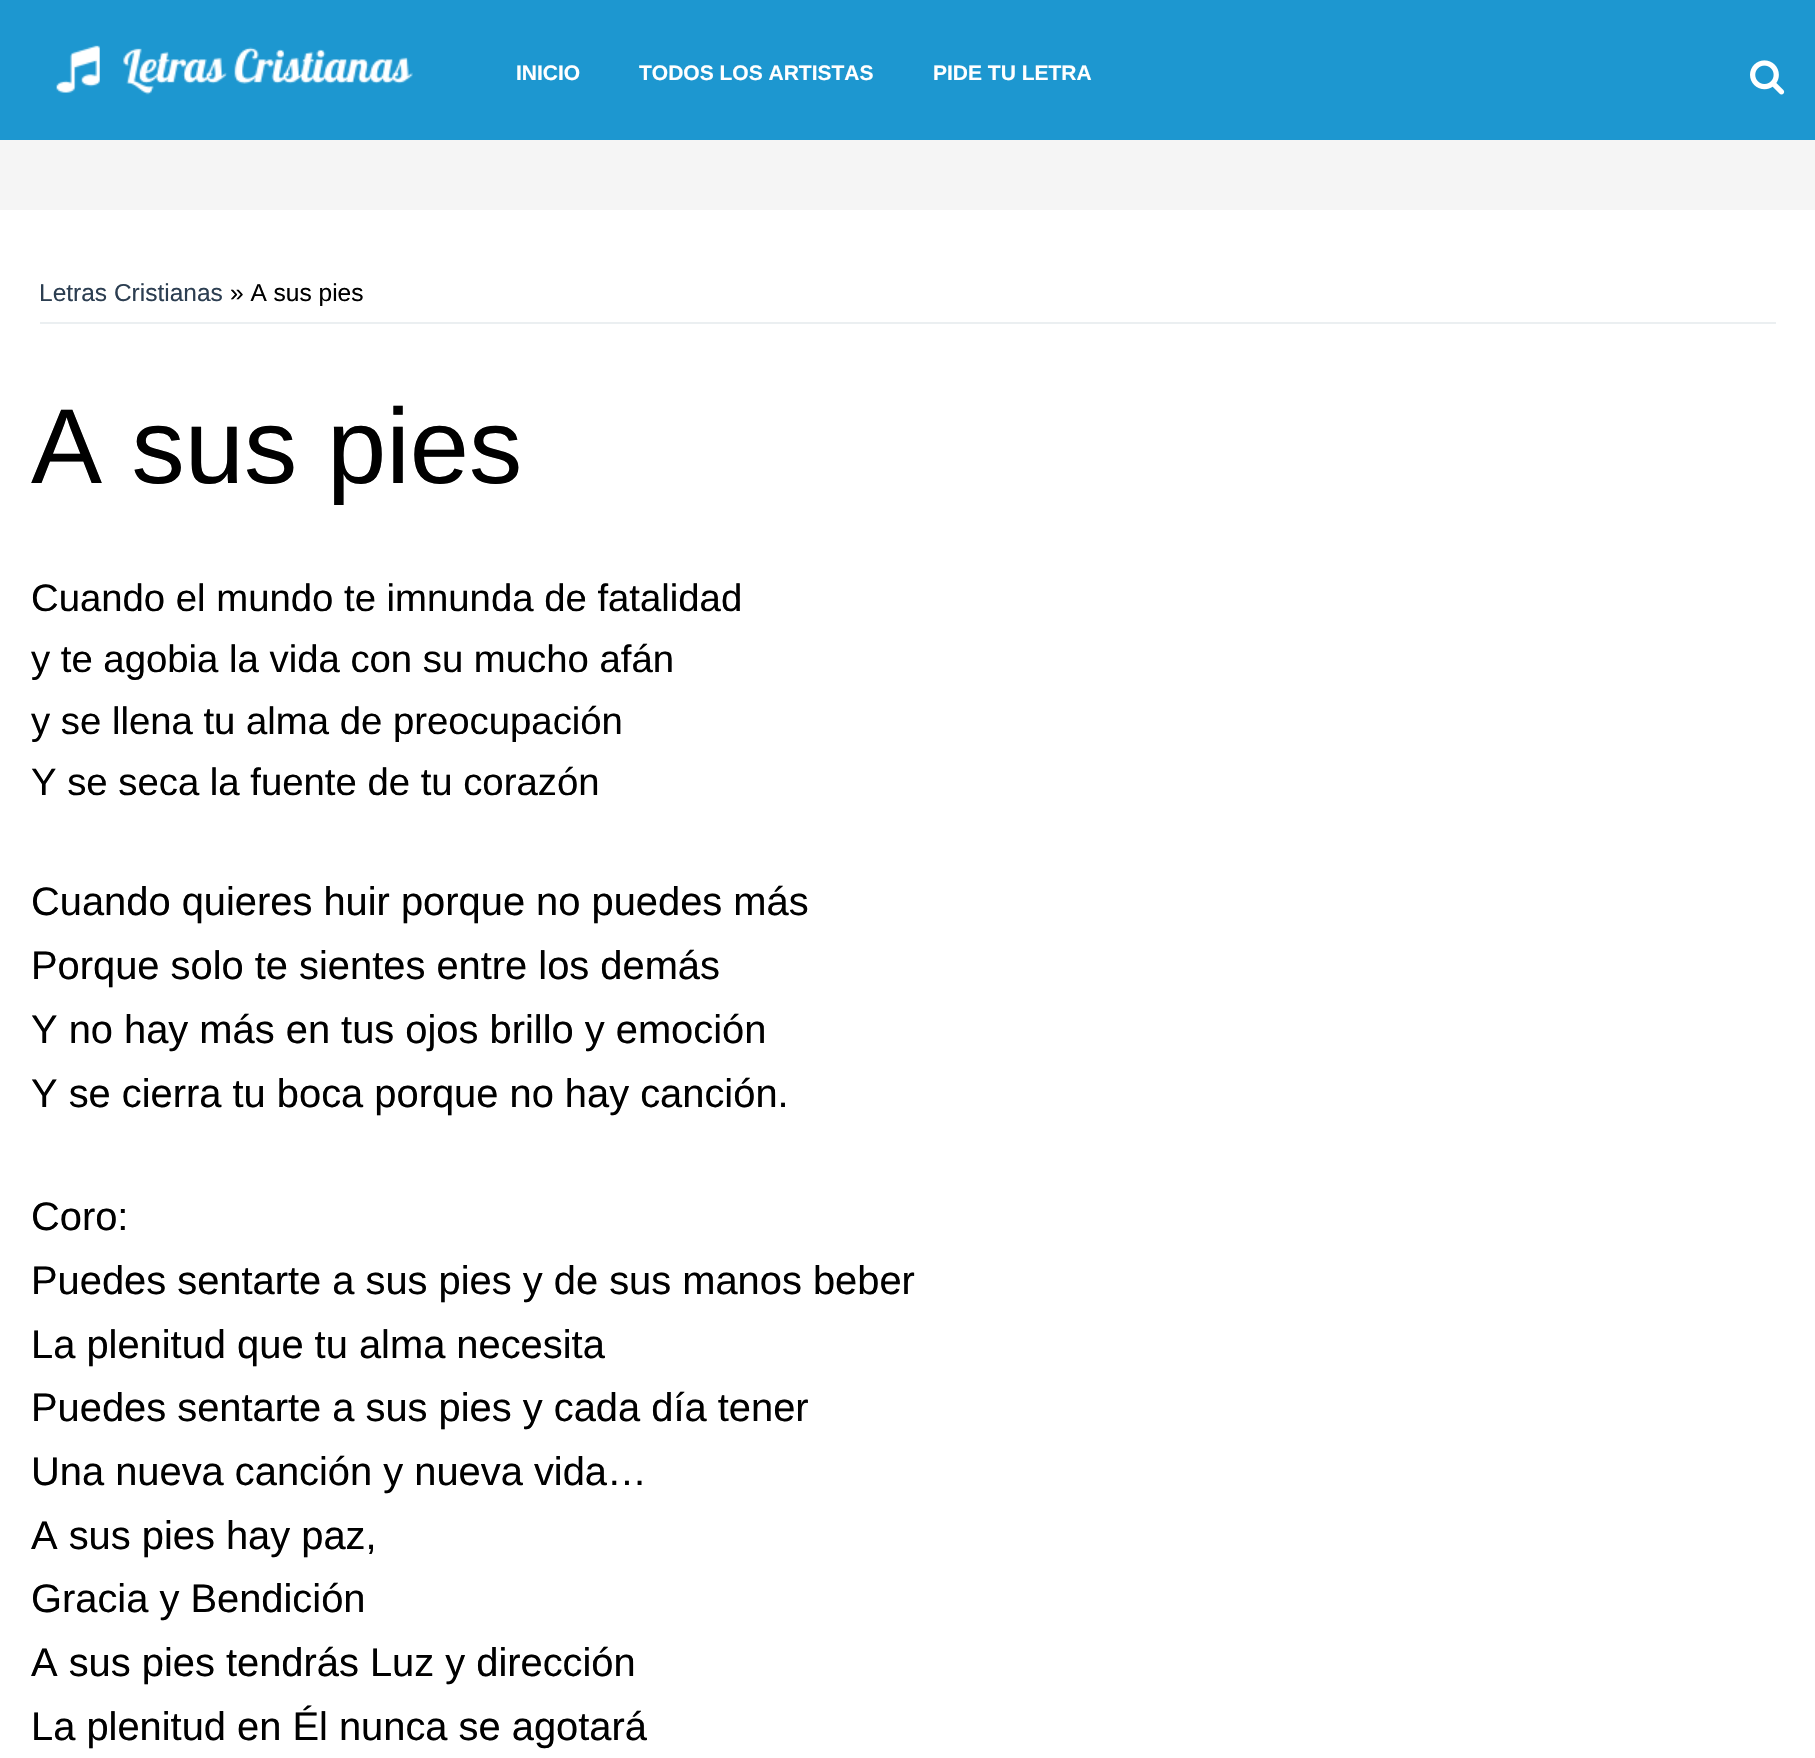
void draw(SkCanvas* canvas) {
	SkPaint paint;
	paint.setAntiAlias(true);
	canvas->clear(0xffffffff);
	paint.setColor(0xff1d97d0);
	canvas->drawRect(SkRect::MakeXYWH(0, 0, 1815, 140), paint);
	canvas->drawImageRect(SkImages::DeferredFromEncodedData(SkData::MakeFromFileName("img1.png")), SkRect::MakeXYWH(56, 45, 357, 50), SkSamplingOptions());
	SkFont f1(fontMgr->matchFamilyStyle("Liberation Sans", SkFontStyle::Bold()), 21);
	f1.setSubpixel(true);
	paint.setColor(0xffffffff);
	canvas->drawString("INICIO", 516, 80, f1, paint);
	canvas->drawString("TODOS LOS ARTISTAS", 639, 80, f1, paint);
	canvas->drawString("PIDE TU LETRA", 933, 80, f1, paint);
	canvas->drawImageRect(SkImages::DeferredFromEncodedData(SkData::MakeFromFileName("img2.png")), SkRect::MakeXYWH(1750, 60, 35, 35), SkSamplingOptions());
	paint.setColor(0xfff5f5f5);
	canvas->drawRect(SkRect::MakeXYWH(0, 140, 1815, 70), paint);
	paint.setColor(0xffebeff1);
	canvas->drawRect(SkRect::MakeXYWH(40, 322, 1736, 2), paint);
	SkFont f2(fontMgr->matchFamilyStyle("Liberation Sans", SkFontStyle::Normal()), 24.5);
	f2.setSubpixel(true);
	paint.setColor(0xff2c3e51);
	canvas->drawString("Letras Cristianas", 39, 301, f2, paint);
	paint.setColor(0xff000000);
	canvas->drawString("» A sus pies", 230, 301, f2, paint);
	SkFont f3(fontMgr->matchFamilyStyle("Liberation Sans", SkFontStyle::Normal()), 106.5);
	f3.setSubpixel(true);
	canvas->drawString("A sus pies", 31, 483, f3, paint);
	SkFont f4(fontMgr->matchFamilyStyle("Liberation Sans", SkFontStyle::Normal()), 38.3);
	f4.setSubpixel(true);
	canvas->drawString("Cuando el mundo te imnunda de fatalidad", 31, 611, f4, paint);
	canvas->drawString("y te agobia la vida con su mucho afán", 31, 672, f4, paint);
	canvas->drawString("y se llena tu alma de preocupación", 31, 734, f4, paint);
	canvas->drawString("Y se seca la fuente de tu corazón", 31, 795, f4, paint);
	SkFont f5(fontMgr->matchFamilyStyle("Liberation Sans", SkFontStyle::Normal()), 39.85);
	f5.setSubpixel(true);
	canvas->drawString("Cuando quieres huir porque no puedes más", 31, 915, f5, paint);
	canvas->drawString("Porque solo te sientes entre los demás", 31, 979, f5, paint);
	canvas->drawString("Y no hay más en tus ojos brillo y emoción", 31, 1043, f5, paint);
	canvas->drawString("Y se cierra tu boca porque no hay canción.", 31, 1107, f5, paint);
	canvas->drawString("Coro:", 31, 1230, f5, paint);
	canvas->drawString("Puedes sentarte a sus pies y de sus manos beber", 31, 1294, f5, paint);
	canvas->drawString("La plenitud que tu alma necesita", 31, 1358, f5, paint);
	canvas->drawString("Puedes sentarte a sus pies y cada día tener", 31, 1421, f5, paint);
	canvas->drawString("Una nueva canción y nueva vida…", 31, 1485, f5, paint);
	canvas->drawString("A sus pies hay paz,", 31, 1549, f5, paint);
	canvas->drawString("Gracia y Bendición", 31, 1612, f5, paint);
	canvas->drawString("A sus pies tendrás Luz y dirección", 31, 1676, f5, paint);
	canvas->drawString("La plenitud en Él nunca se agotará", 31, 1740, f5, paint);
}
